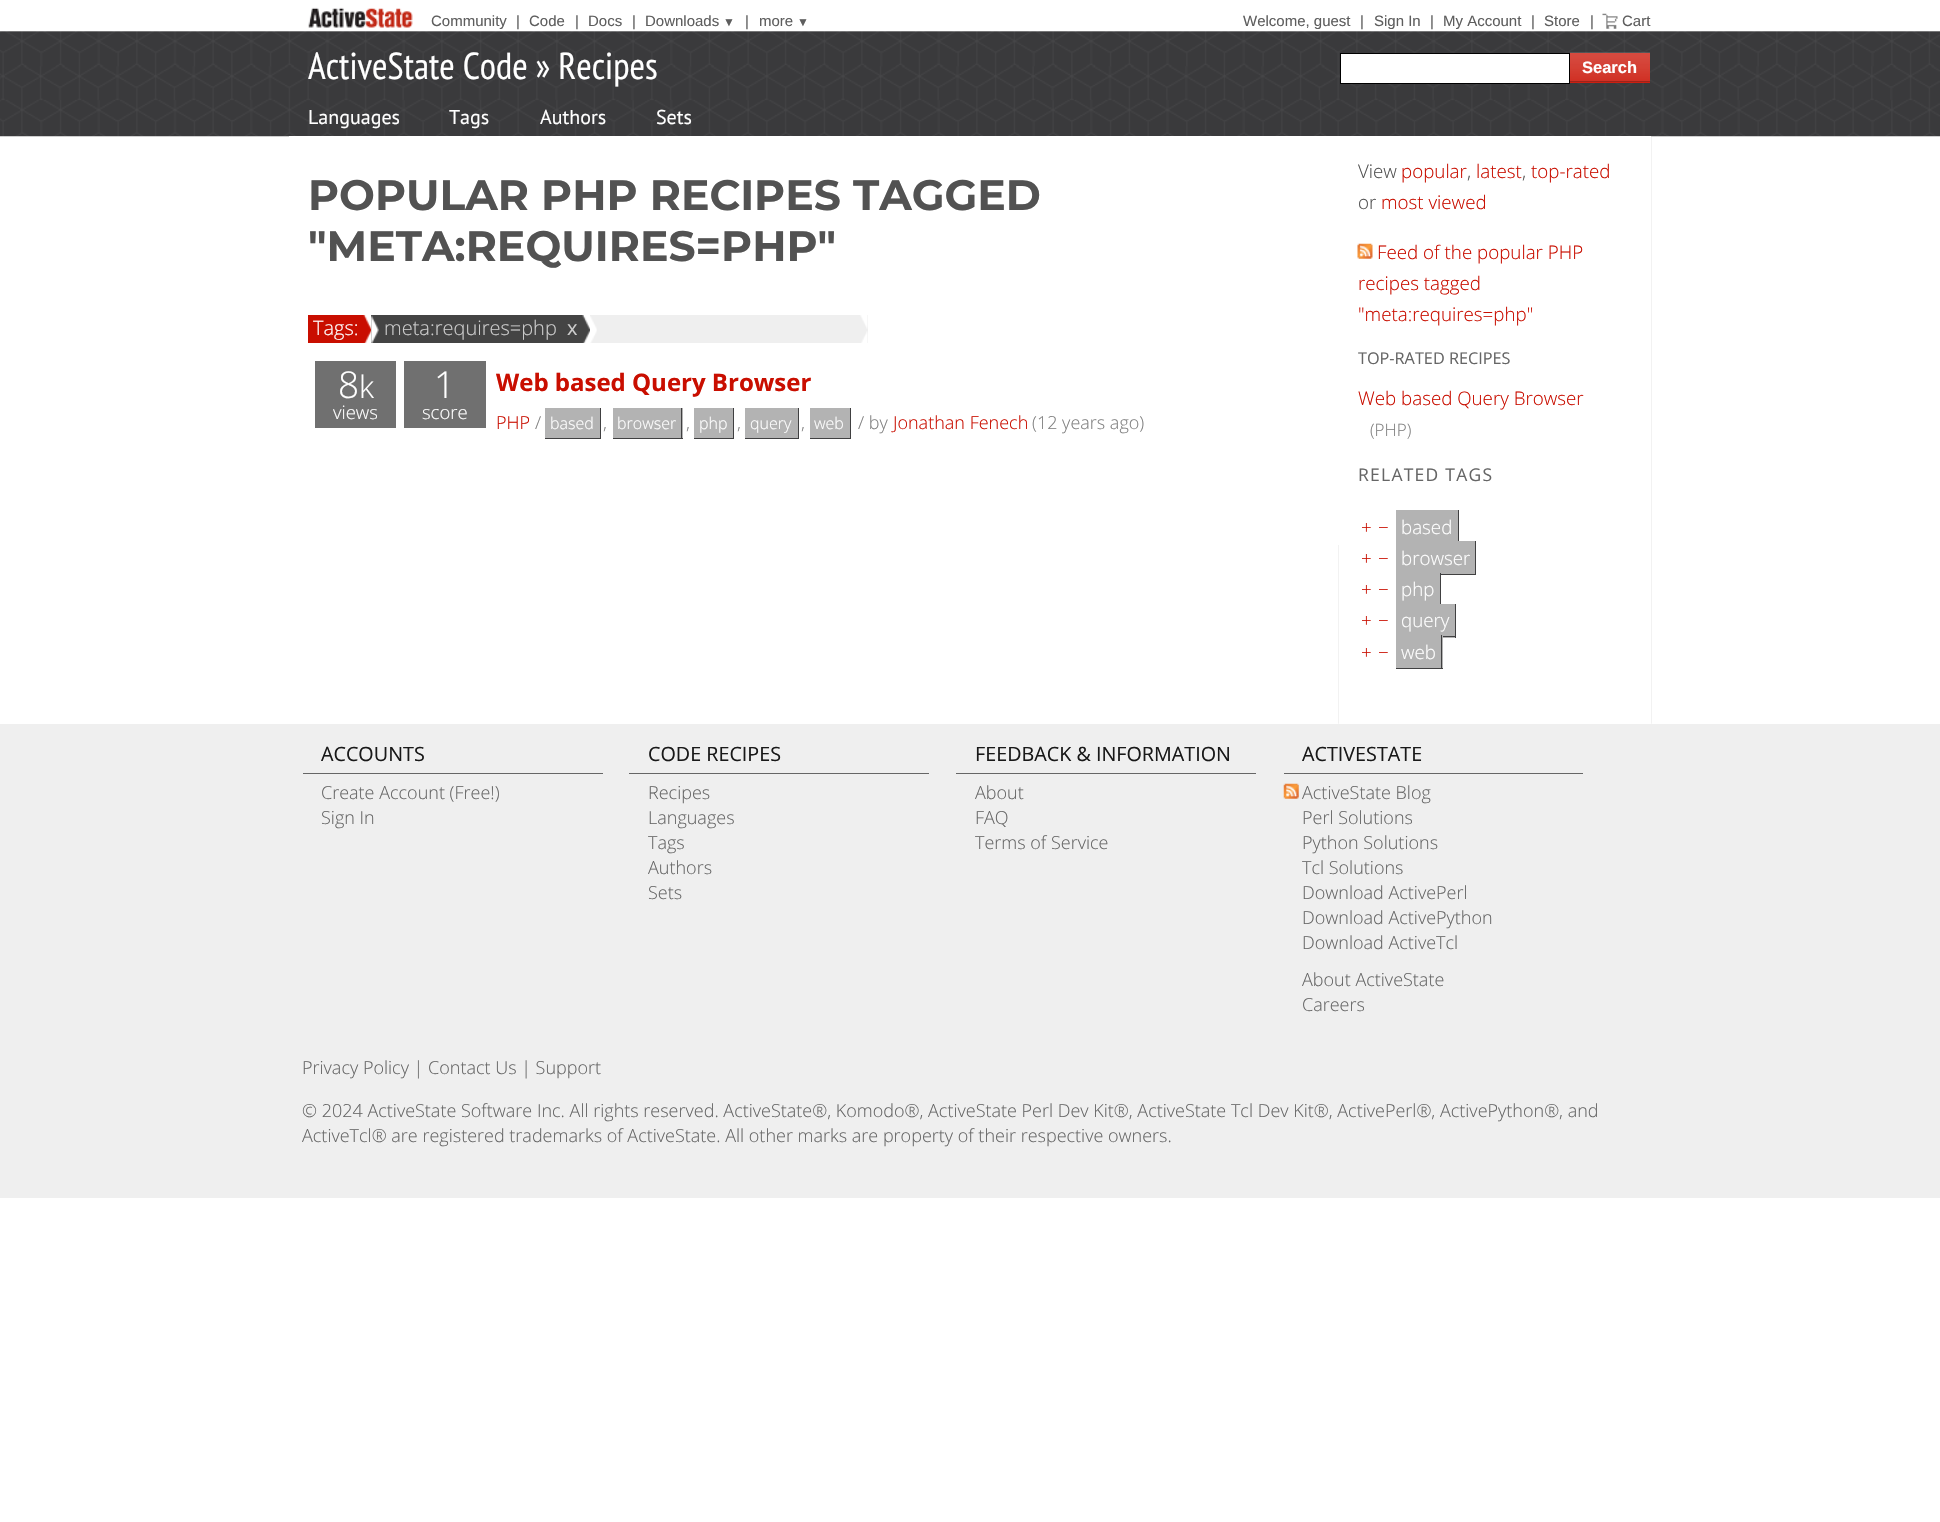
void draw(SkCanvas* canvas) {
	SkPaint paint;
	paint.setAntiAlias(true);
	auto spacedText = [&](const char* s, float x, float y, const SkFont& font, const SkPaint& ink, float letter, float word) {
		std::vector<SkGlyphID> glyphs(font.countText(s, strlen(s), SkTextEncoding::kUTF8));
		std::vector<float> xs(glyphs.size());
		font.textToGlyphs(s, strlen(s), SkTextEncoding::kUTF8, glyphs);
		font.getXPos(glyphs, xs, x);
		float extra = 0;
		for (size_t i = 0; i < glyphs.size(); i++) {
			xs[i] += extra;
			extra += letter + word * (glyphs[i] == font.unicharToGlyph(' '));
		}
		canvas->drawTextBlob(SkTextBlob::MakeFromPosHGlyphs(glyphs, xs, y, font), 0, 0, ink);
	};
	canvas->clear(0xffffffff);
	canvas->drawImageRect(SkImages::DeferredFromEncodedData(SkData::MakeFromFileName("img1.png")), SkRect::MakeXYWH(0, 31, 1940, 106), SkSamplingOptions());
	canvas->drawImageRect(SkImages::DeferredFromEncodedData(SkData::MakeFromFileName("img2.png")), SkRect::MakeXYWH(308, 7, 105, 21), SkSamplingOptions());
	SkFont f1(fontMgr->matchFamilyStyle("Liberation Sans", SkFontStyle::Normal()), 15);
	f1.setSubpixel(true);
	paint.setColor(0xff5e5e5e);
	canvas->drawString("Community", 431, 26, f1, paint);
	canvas->drawString("|", 516, 26, f1, paint);
	canvas->drawString("Code", 529, 26, f1, paint);
	canvas->drawString("|", 575, 26, f1, paint);
	canvas->drawString("Docs", 588, 26, f1, paint);
	canvas->drawString("|", 632, 26, f1, paint);
	canvas->drawString("Downloads", 645, 26, f1, paint);
	SkFont f2(fontMgr->matchFamilyStyle("Liberation Sans", SkFontStyle::Normal()), 12);
	f2.setSubpixel(true);
	canvas->drawString("▼", 723, 26, f2, paint);
	canvas->drawString("|", 745, 26, f1, paint);
	canvas->drawString("more", 759, 26, f1, paint);
	canvas->drawString("▼", 797, 26, f2, paint);
	canvas->drawString("Welcome, guest", 1243, 26, f1, paint);
	canvas->drawString("|", 1360, 26, f1, paint);
	canvas->drawString("Sign In", 1374, 26, f1, paint);
	canvas->drawString("|", 1430, 26, f1, paint);
	canvas->drawString("My Account", 1443, 26, f1, paint);
	canvas->drawString("|", 1531, 26, f1, paint);
	canvas->drawString("Store", 1544, 26, f1, paint);
	canvas->drawString("|", 1590, 26, f1, paint);
	canvas->drawImageRect(SkImages::DeferredFromEncodedData(SkData::MakeFromFileName("img3.png")), SkRect::MakeXYWH(1602, 13, 16, 16), SkSamplingOptions());
	canvas->drawString("Cart", 1622, 26, f1, paint);
	SkFont f3(fontMgr->matchFamilyStyle("PT Sans Narrow", SkFontStyle::Normal()), 37.5);
	f3.setSubpixel(true);
	paint.setColor(0xffffffff);
	canvas->drawString("ActiveState Code » Recipes", 308, 79, f3, paint);
	canvas->drawRect(SkRect::MakeXYWH(1340.5, 53.5, 229, 30), paint);
	paint.setStroke(true);
	paint.setStrokeWidth(1);
	paint.setColor(0xff000000);
	canvas->drawRect(SkRect::MakeXYWH(1340.5, 53.5, 229, 30), paint);
	paint.setStroke(false);
	paint.setColor(0xffc90e00);
	canvas->drawRect(SkRect::MakeXYWH(1570, 53, 80, 30), paint);
	canvas->drawImageRect(SkImages::DeferredFromEncodedData(SkData::MakeFromFileName("img4.png")), SkRect::MakeXYWH(1570, 52, 80, 31), SkSamplingOptions());
	paint.setColor(0xff9c231a);
	canvas->drawRect(SkRect::MakeXYWH(1570, 81, 80, 1), paint);
	SkFont f4(fontMgr->matchFamilyStyle("Liberation Sans", SkFontStyle::Bold()), 16.5);
	f4.setSubpixel(true);
	paint.setColor(0xffffffff);
	canvas->drawString("Search", 1582, 73, f4, paint);
	SkFont f5(fontMgr->matchFamilyStyle("PT Sans", SkFontStyle::Normal()), 20);
	f5.setSubpixel(true);
	canvas->drawString("Languages", 308, 124, f5, paint);
	canvas->drawString("Tags", 449, 124, f5, paint);
	canvas->drawString("Authors", 540, 124, f5, paint);
	canvas->drawString("Sets", 656, 124, f5, paint);
	canvas->drawImageRect(SkImages::DeferredFromEncodedData(SkData::MakeFromFileName("img5.png")), SkRect::MakeXYWH(1338, 136, 314, 588), SkSamplingOptions());
	canvas->drawRect(SkRect::MakeXYWH(289, 136, 1050, 409), paint);
	SkFont f6(fontMgr->matchFamilyStyle("Montserrat", SkFontStyle::Bold()), 42.5);
	f6.setSubpixel(true);
	paint.setColor(0xff525252);
	canvas->drawString("POPULAR PHP RECIPES TAGGED", 308, 210, f6, paint);
	canvas->drawString("\"META:REQUIRES=PHP\"", 308, 261, f6, paint);
	paint.setColor(0xffc90e00);
	canvas->drawRect(SkRect::MakeXYWH(308, 315, 63, 28), paint);
	SkFont f7(fontMgr->matchFamilyStyle("Open Sans", SkFontStyle(300, SkFontStyle::kNormal_Width, SkFontStyle::kUpright_Slant)), 20);
	f7.setSubpixel(true);
	paint.setColor(0xffffffff);
	canvas->drawString("Tags:", 313, 335, f7, paint);
	canvas->drawImageRect(SkImages::DeferredFromEncodedData(SkData::MakeFromFileName("img6.png")), SkRect::MakeXYWH(363, 315, 8, 28), SkSamplingOptions());
	paint.setColor(0xff444444);
	canvas->drawRect(SkRect::MakeXYWH(371, 315, 219, 28), paint);
	canvas->drawImageRect(SkImages::DeferredFromEncodedData(SkData::MakeFromFileName("img7.png")), SkRect::MakeXYWH(371, 315, 8, 28), SkSamplingOptions());
	paint.setColor(0xffcccccc);
	canvas->drawString("meta:requires=php", 384, 335, f7, paint);
	SkFont f8(fontMgr->matchFamilyStyle("Open Sans", SkFontStyle::Normal()), 20);
	f8.setSubpixel(true);
	canvas->drawString("x", 567, 335, f8, paint);
	canvas->drawImageRect(SkImages::DeferredFromEncodedData(SkData::MakeFromFileName("img8.png")), SkRect::MakeXYWH(582, 315, 8, 28), SkSamplingOptions());
	paint.setColor(0xffefefef);
	canvas->drawRect(SkRect::MakeXYWH(590, 315, 278, 28), paint);
	canvas->drawImageRect(SkImages::DeferredFromEncodedData(SkData::MakeFromFileName("img9.png")), SkRect::MakeXYWH(590, 316, 7, 27), SkSamplingOptions());
	canvas->drawImageRect(SkImages::DeferredFromEncodedData(SkData::MakeFromFileName("img10.png")), SkRect::MakeXYWH(860, 315, 8, 28), SkSamplingOptions());
	paint.setColor(0xff707070);
	canvas->drawRect(SkRect::MakeXYWH(315, 361, 81, 67), paint);
	SkFont f9(fontMgr->matchFamilyStyle("Open Sans", SkFontStyle(300, SkFontStyle::kNormal_Width, SkFontStyle::kUpright_Slant)), 37);
	f9.setSubpixel(true);
	paint.setColor(0xffffffff);
	canvas->drawString("8", 338, 398, f9, paint);
	SkFont f10(fontMgr->matchFamilyStyle("Open Sans", SkFontStyle(300, SkFontStyle::kNormal_Width, SkFontStyle::kUpright_Slant)), 31);
	f10.setSubpixel(true);
	canvas->drawString("k", 359, 398, f10, paint);
	SkFont f11(fontMgr->matchFamilyStyle("Open Sans", SkFontStyle(300, SkFontStyle::kNormal_Width, SkFontStyle::kUpright_Slant)), 18.5);
	f11.setSubpixel(true);
	canvas->drawString("views", 333, 419, f11, paint);
	paint.setColor(0xff707070);
	canvas->drawRect(SkRect::MakeXYWH(404, 361, 82, 67), paint);
	paint.setColor(0xffffffff);
	canvas->drawString("1", 434, 398, f9, paint);
	canvas->drawString("score", 422, 419, f11, paint);
	SkFont f12(fontMgr->matchFamilyStyle("Open Sans", SkFontStyle::Bold()), 24);
	f12.setSubpixel(true);
	paint.setColor(0xffc90e00);
	canvas->drawString("Web based Query Browser", 496, 391, f12, paint);
	SkFont f13(fontMgr->matchFamilyStyle("Open Sans", SkFontStyle(300, SkFontStyle::kNormal_Width, SkFontStyle::kUpright_Slant)), 18);
	f13.setSubpixel(true);
	canvas->drawString("PHP", 496, 429, f13, paint);
	paint.setColor(0xff808080);
	canvas->drawString("/", 535, 429, f13, paint);
	paint.setColor(0xffb3b3b3);
	canvas->drawRect(SkRect::MakeXYWH(545, 408, 55, 30), paint);
	SkFont f14(fontMgr->matchFamilyStyle("Open Sans", SkFontStyle(300, SkFontStyle::kNormal_Width, SkFontStyle::kUpright_Slant)), 16);
	f14.setSubpixel(true);
	paint.setColor(0xffffffff);
	canvas->drawString("based", 550, 429, f14, paint);
	paint.setColor(0xff404041);
	canvas->drawRect(SkRect::MakeXYWH(600, 408, 1, 31), paint);
	canvas->drawRect(SkRect::MakeXYWH(545, 438, 56, 1), paint);
	paint.setColor(0xff808080);
	canvas->drawString(",", 603, 429, f13, paint);
	paint.setColor(0xffb3b3b3);
	canvas->drawRect(SkRect::MakeXYWH(613, 408, 70, 30), paint);
	paint.setColor(0xffffffff);
	canvas->drawString("browser", 617, 429, f14, paint);
	paint.setColor(0xff404041);
	canvas->drawRect(SkRect::MakeXYWH(681, 408, 1, 31), paint);
	canvas->drawRect(SkRect::MakeXYWH(613, 438, 70, 1), paint);
	paint.setColor(0xff808080);
	canvas->drawString(",", 686, 429, f13, paint);
	paint.setColor(0xffb3b3b3);
	canvas->drawRect(SkRect::MakeXYWH(694, 408, 39, 30), paint);
	paint.setColor(0xffffffff);
	canvas->drawString("php", 699, 429, f14, paint);
	paint.setColor(0xff404041);
	canvas->drawRect(SkRect::MakeXYWH(733, 408, 1, 31), paint);
	canvas->drawRect(SkRect::MakeXYWH(694, 438, 40, 1), paint);
	paint.setColor(0xff808080);
	canvas->drawString(",", 737, 429, f13, paint);
	paint.setColor(0xffb3b3b3);
	canvas->drawRect(SkRect::MakeXYWH(745, 408, 53, 30), paint);
	paint.setColor(0xffffffff);
	canvas->drawString("query", 750, 429, f14, paint);
	paint.setColor(0xff404041);
	canvas->drawRect(SkRect::MakeXYWH(798, 408, 1, 31), paint);
	canvas->drawRect(SkRect::MakeXYWH(745, 438, 54, 1), paint);
	paint.setColor(0xff808080);
	canvas->drawString(",", 801, 429, f13, paint);
	paint.setColor(0xffb3b3b3);
	canvas->drawRect(SkRect::MakeXYWH(810, 408, 40, 30), paint);
	paint.setColor(0xffffffff);
	canvas->drawString("web", 814, 429, f14, paint);
	paint.setColor(0xff404041);
	canvas->drawRect(SkRect::MakeXYWH(850, 408, 1, 31), paint);
	canvas->drawRect(SkRect::MakeXYWH(810, 438, 41, 1), paint);
	paint.setColor(0xff808080);
	canvas->drawString("/ by", 858, 429, f13, paint);
	paint.setColor(0xffc90e00);
	canvas->drawString("Jonathan Fenech", 893, 429, f13, paint);
	paint.setColor(0xff808080);
	canvas->drawString("(12 years ago)", 1032, 429, f13, paint);
	paint.setColor(0xffffffff);
	canvas->drawRect(SkRect::MakeXYWH(1339, 136, 312, 588), paint);
	SkFont f15(fontMgr->matchFamilyStyle("Open Sans", SkFontStyle(300, SkFontStyle::kNormal_Width, SkFontStyle::kUpright_Slant)), 18.75);
	f15.setSubpixel(true);
	paint.setColor(0xff525252);
	canvas->drawString("View", 1358, 178, f15, paint);
	paint.setColor(0xffc90e00);
	canvas->drawString("popular", 1401, 178, f15, paint);
	paint.setColor(0xff525252);
	canvas->drawString(",", 1467, 178, f15, paint);
	paint.setColor(0xffc90e00);
	canvas->drawString("latest", 1476, 178, f15, paint);
	paint.setColor(0xff525252);
	canvas->drawString(",", 1522, 178, f15, paint);
	paint.setColor(0xffc90e00);
	canvas->drawString("top-rated", 1531, 178, f15, paint);
	paint.setColor(0xff525252);
	canvas->drawString("or", 1358, 209, f15, paint);
	paint.setColor(0xffc90e00);
	canvas->drawString("most viewed", 1381, 209, f15, paint);
	canvas->drawImageRect(SkImages::DeferredFromEncodedData(SkData::MakeFromFileName("img11.png")), SkRect::MakeXYWH(1357, 243, 16, 16), SkSamplingOptions());
	canvas->drawString("Feed of the popular PHP", 1377, 259, f15, paint);
	canvas->drawString("recipes tagged", 1358, 290, f15, paint);
	canvas->drawString("\"meta:requires=php\"", 1358, 321, f15, paint);
	SkFont f16(fontMgr->matchFamilyStyle("Open Sans", SkFontStyle::Normal()), 16.25);
	f16.setSubpixel(true);
	paint.setColor(0xff666666);
	canvas->drawString("TOP-RATED RECIPES", 1358, 364, f16, paint);
	paint.setColor(0xffc90e00);
	canvas->drawString("Web based Query Browser", 1358, 405, f15, paint);
	SkFont f17(fontMgr->matchFamilyStyle("Open Sans", SkFontStyle(300, SkFontStyle::kNormal_Width, SkFontStyle::kUpright_Slant)), 17);
	f17.setSubpixel(true);
	paint.setColor(0xff808080);
	canvas->drawString("(PHP)", 1370, 436, f17, paint);
	SkFont f18(fontMgr->matchFamilyStyle("Open Sans", SkFontStyle::Normal()), 17.5);
	f18.setSubpixel(true);
	paint.setColor(0xff666666);
	spacedText("RELATED TAGS", 1358, 481, f18, paint, 1.25, 0);
	paint.setColor(0xffc90e00);
	canvas->drawString("+", 1361, 534, f15, paint);
	canvas->drawString("−", 1378, 534, f15, paint);
	paint.setColor(0xffb3b3b3);
	canvas->drawRect(SkRect::MakeXYWH(1396, 510, 62, 31), paint);
	paint.setColor(0xffffffff);
	canvas->drawString("based", 1401, 534, f15, paint);
	paint.setColor(0xff404041);
	canvas->drawRect(SkRect::MakeXYWH(1458, 510, 1, 34), paint);
	paint.setColor(0xffc90e00);
	canvas->drawString("+", 1361, 565, f15, paint);
	canvas->drawString("−", 1378, 565, f15, paint);
	paint.setColor(0xffb3b3b3);
	canvas->drawRect(SkRect::MakeXYWH(1396, 541, 79, 33), paint);
	paint.setColor(0xffffffff);
	canvas->drawString("browser", 1401, 565, f15, paint);
	paint.setColor(0xff404041);
	canvas->drawRect(SkRect::MakeXYWH(1475, 541, 1, 34), paint);
	canvas->drawRect(SkRect::MakeXYWH(1441, 574, 35, 1), paint);
	paint.setColor(0xffc90e00);
	canvas->drawString("+", 1361, 596, f15, paint);
	canvas->drawString("−", 1378, 596, f15, paint);
	paint.setColor(0xffb3b3b3);
	canvas->drawRect(SkRect::MakeXYWH(1396, 574, 44, 30), paint);
	paint.setColor(0xffffffff);
	canvas->drawString("php", 1401, 596, f15, paint);
	paint.setColor(0xff404041);
	canvas->drawRect(SkRect::MakeXYWH(1440, 573, 1, 33), paint);
	paint.setColor(0xffc90e00);
	canvas->drawString("+", 1361, 627, f15, paint);
	canvas->drawString("−", 1378, 627, f15, paint);
	paint.setColor(0xffb3b3b3);
	canvas->drawRect(SkRect::MakeXYWH(1396, 604, 59, 34), paint);
	paint.setColor(0xffffffff);
	canvas->drawString("query", 1401, 627, f15, paint);
	paint.setColor(0xff404041);
	canvas->drawRect(SkRect::MakeXYWH(1455, 604, 1, 34), paint);
	canvas->drawRect(SkRect::MakeXYWH(1443, 636, 13, 1), paint);
	paint.setColor(0xffc90e00);
	canvas->drawString("+", 1361, 659, f15, paint);
	canvas->drawString("−", 1378, 659, f15, paint);
	paint.setColor(0xffb3b3b3);
	canvas->drawRect(SkRect::MakeXYWH(1396, 638, 47, 30), paint);
	paint.setColor(0xffffffff);
	canvas->drawString("web", 1401, 659, f15, paint);
	paint.setColor(0xff404041);
	canvas->drawRect(SkRect::MakeXYWH(1441, 635, 1, 34), paint);
	canvas->drawRect(SkRect::MakeXYWH(1396, 668, 47, 1), paint);
	paint.setColor(0xffefefef);
	canvas->drawRect(SkRect::MakeXYWH(0, 724, 1940, 474), paint);
	paint.setColor(0xff666666);
	canvas->drawRect(SkRect::MakeXYWH(303, 773, 300, 1), paint);
	SkFont f19(fontMgr->matchFamilyStyle("Open Sans", SkFontStyle::Normal()), 19.75);
	f19.setSubpixel(true);
	paint.setColor(0xff191919);
	canvas->drawString("ACCOUNTS", 321, 761, f19, paint);
	paint.setColor(0xff666666);
	canvas->drawString("Create Account (Free!)", 321, 799, f13, paint);
	canvas->drawString("Sign In", 321, 824, f13, paint);
	canvas->drawRect(SkRect::MakeXYWH(629, 773, 300, 1), paint);
	paint.setColor(0xff191919);
	canvas->drawString("CODE RECIPES", 648, 761, f19, paint);
	paint.setColor(0xff666666);
	canvas->drawString("Recipes", 648, 799, f13, paint);
	canvas->drawString("Languages", 648, 824, f13, paint);
	canvas->drawString("Tags", 648, 849, f13, paint);
	canvas->drawString("Authors", 648, 874, f13, paint);
	canvas->drawString("Sets", 648, 899, f13, paint);
	canvas->drawRect(SkRect::MakeXYWH(956, 773, 300, 1), paint);
	paint.setColor(0xff191919);
	canvas->drawString("FEEDBACK & INFORMATION", 975, 761, f19, paint);
	paint.setColor(0xff666666);
	canvas->drawString("About", 975, 799, f13, paint);
	canvas->drawString("FAQ", 975, 824, f13, paint);
	canvas->drawString("Terms of Service", 975, 849, f13, paint);
	canvas->drawRect(SkRect::MakeXYWH(1284, 773, 299, 1), paint);
	paint.setColor(0xff191919);
	canvas->drawString("ACTIVESTATE", 1302, 761, f19, paint);
	canvas->drawImageRect(SkImages::DeferredFromEncodedData(SkData::MakeFromFileName("img12.png")), SkRect::MakeXYWH(1283, 783, 16, 16), SkSamplingOptions());
	paint.setColor(0xff666666);
	canvas->drawString("ActiveState Blog", 1302, 799, f13, paint);
	canvas->drawString("Perl Solutions", 1302, 824, f13, paint);
	canvas->drawString("Python Solutions", 1302, 849, f13, paint);
	canvas->drawString("Tcl Solutions", 1302, 874, f13, paint);
	canvas->drawString("Download ActivePerl", 1302, 899, f13, paint);
	canvas->drawString("Download ActivePython", 1302, 924, f13, paint);
	canvas->drawString("Download ActiveTcl", 1302, 949, f13, paint);
	canvas->drawString("About ActiveState", 1302, 986, f13, paint);
	canvas->drawString("Careers", 1302, 1011, f13, paint);
	canvas->drawString("Privacy Policy | Contact Us | Support", 302, 1074, f13, paint);
	canvas->drawString("© 2024 ActiveState Software Inc. All rights reserved. ActiveState®, Komodo®, ActiveState Perl Dev Kit®, ActiveState Tcl Dev Kit®, ActivePerl®, ActivePython®, and", 302, 1117, f13, paint);
	canvas->drawString("ActiveTcl® are registered trademarks of ActiveState. All other marks are property of their respective owners.", 302, 1142, f13, paint);
}
